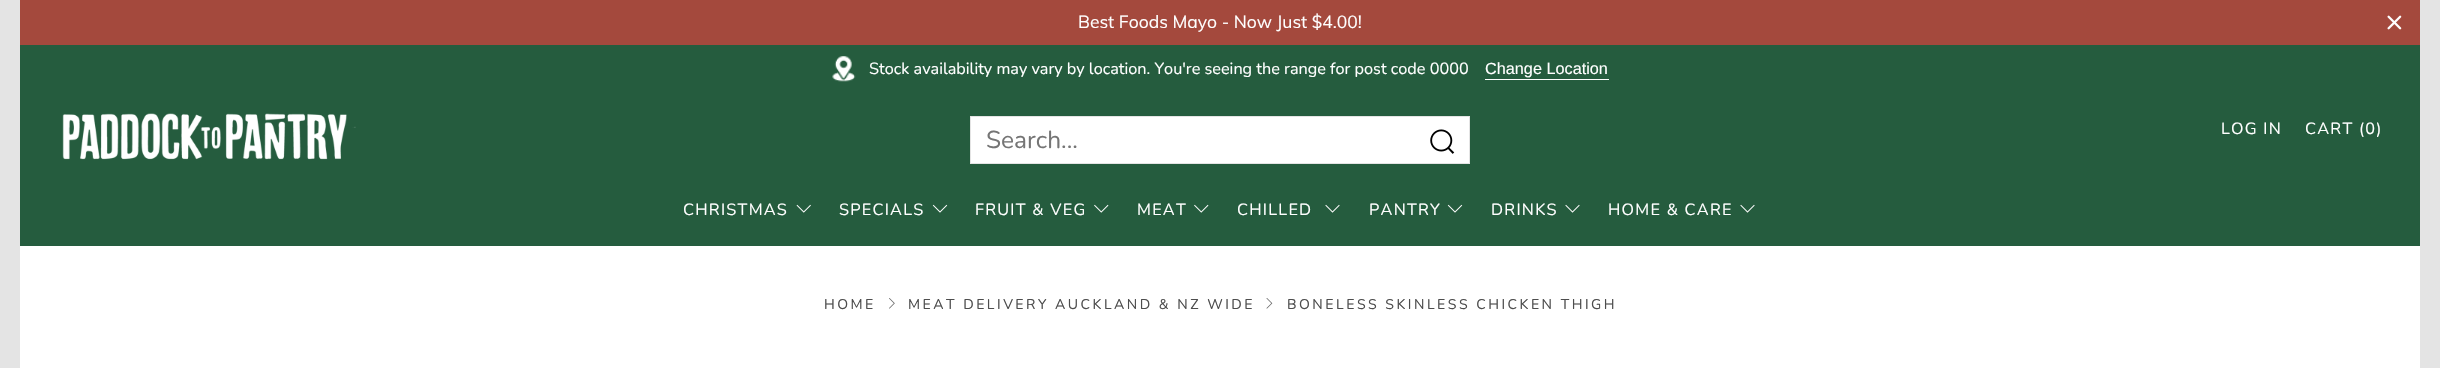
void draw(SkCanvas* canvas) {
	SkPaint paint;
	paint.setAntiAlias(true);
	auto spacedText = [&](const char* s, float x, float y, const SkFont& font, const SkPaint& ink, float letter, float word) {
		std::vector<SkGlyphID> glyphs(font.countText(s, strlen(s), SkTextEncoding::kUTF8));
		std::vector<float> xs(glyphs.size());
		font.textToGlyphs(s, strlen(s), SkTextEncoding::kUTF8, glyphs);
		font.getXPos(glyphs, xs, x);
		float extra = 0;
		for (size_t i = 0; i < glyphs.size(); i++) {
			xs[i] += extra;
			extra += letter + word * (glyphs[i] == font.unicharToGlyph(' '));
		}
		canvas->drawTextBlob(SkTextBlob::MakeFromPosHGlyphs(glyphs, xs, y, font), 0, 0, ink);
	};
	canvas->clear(0xffe4e4e4);
	paint.setColor(0xffffffff);
	canvas->drawRect(SkRect::MakeXYWH(20, 246, 2400, 122), paint);
	paint.setColor(0xffa4493d);
	canvas->drawRect(SkRect::MakeXYWH(20, 0, 2400, 45), paint);
	SkFont f1(fontMgr->matchFamilyStyle("Muli", SkFontStyle::Normal()), 17.5);
	f1.setSubpixel(true);
	paint.setColor(0xffffffff);
	canvas->drawString("Best Foods Mayo - Now Just $4.00!", 1078, 28, f1, paint);
	canvas->drawImageRect(SkImages::DeferredFromEncodedData(SkData::MakeFromFileName("img1.png")), SkRect::MakeXYWH(2387, 15, 15, 15), SkSamplingOptions());
	paint.setColor(0xff255c3e);
	canvas->drawRect(SkRect::MakeXYWH(20, 45, 2400, 201), paint);
	canvas->drawImageRect(SkImages::DeferredFromEncodedData(SkData::MakeFromFileName("img2.png")), SkRect::MakeXYWH(832, 56, 24, 26), SkSamplingOptions());
	SkFont f2(fontMgr->matchFamilyStyle("Nunito", SkFontStyle::Normal()), 16.25);
	f2.setSubpixel(true);
	paint.setColor(0xffffffff);
	canvas->drawString("Stock availability may vary by location. You're seeing the range for post code 0000", 869, 74, f2, paint);
	SkFont f3(fontMgr->matchFamilyStyle("Liberation Sans", SkFontStyle::Normal()), 16.25);
	f3.setSubpixel(true);
	canvas->drawString("Change Location", 1485, 74, f3, paint);
	canvas->drawRect(SkRect::MakeXYWH(1485, 79, 124, 1), paint);
	canvas->drawImageRect(SkImages::DeferredFromEncodedData(SkData::MakeFromFileName("img3.png")), SkRect::MakeXYWH(62, 113, 294, 47), SkSamplingOptions());
	spacedText("LOG IN", 2221, 134, f2, paint, 1.25, 0);
	spacedText("CART (0)", 2305, 134, f2, paint, 1.25, 0);
	spacedText("CHRISTMAS", 683, 215, f2, paint, 1.25, 0);
	canvas->drawImageRect(SkImages::DeferredFromEncodedData(SkData::MakeFromFileName("img4.png")), SkRect::MakeXYWH(796, 204, 15, 9), SkSamplingOptions());
	spacedText("SPECIALS", 839, 215, f2, paint, 1.25, 0);
	canvas->drawImageRect(SkImages::DeferredFromEncodedData(SkData::MakeFromFileName("img5.png")), SkRect::MakeXYWH(932, 204, 16, 9), SkSamplingOptions());
	spacedText("FRUIT & VEG", 975, 215, f2, paint, 1.25, 0);
	canvas->drawImageRect(SkImages::DeferredFromEncodedData(SkData::MakeFromFileName("img6.png")), SkRect::MakeXYWH(1094, 204, 15, 9), SkSamplingOptions());
	spacedText("MEAT", 1137, 215, f2, paint, 1.25, 0);
	canvas->drawImageRect(SkImages::DeferredFromEncodedData(SkData::MakeFromFileName("img6.png")), SkRect::MakeXYWH(1194, 204, 15, 9), SkSamplingOptions());
	spacedText("CHILLED", 1237, 215, f2, paint, 1.25, 0);
	canvas->drawImageRect(SkImages::DeferredFromEncodedData(SkData::MakeFromFileName("img7.png")), SkRect::MakeXYWH(1325, 204, 15, 9), SkSamplingOptions());
	spacedText("PANTRY", 1369, 215, f2, paint, 1.25, 0);
	canvas->drawImageRect(SkImages::DeferredFromEncodedData(SkData::MakeFromFileName("img5.png")), SkRect::MakeXYWH(1447, 204, 16, 9), SkSamplingOptions());
	spacedText("DRINKS", 1491, 215, f2, paint, 1.25, 0);
	canvas->drawImageRect(SkImages::DeferredFromEncodedData(SkData::MakeFromFileName("img7.png")), SkRect::MakeXYWH(1565, 204, 15, 9), SkSamplingOptions());
	spacedText("HOME & CARE", 1608, 215, f2, paint, 1.25, 0);
	canvas->drawImageRect(SkImages::DeferredFromEncodedData(SkData::MakeFromFileName("img7.png")), SkRect::MakeXYWH(1740, 204, 15, 9), SkSamplingOptions());
	canvas->drawRect(SkRect::MakeXYWH(970.5, 116.5, 499, 47), paint);
	paint.setStroke(true);
	paint.setStrokeWidth(1);
	paint.setColor(0xffe4e4e4);
	canvas->drawRect(SkRect::MakeXYWH(970.5, 116.5, 499, 47), paint);
	SkFont f4(fontMgr->matchFamilyStyle("Nunito", SkFontStyle::Normal()), 24.5);
	f4.setSubpixel(true);
	paint.setStroke(false);
	paint.setColor(0xff757575);
	canvas->drawString("Search...", 986, 148, f4, paint);
	canvas->drawImageRect(SkImages::DeferredFromEncodedData(SkData::MakeFromFileName("img8.png")), SkRect::MakeXYWH(1430, 129, 25, 25), SkSamplingOptions());
	SkFont f5(fontMgr->matchFamilyStyle("Nunito", SkFontStyle::Normal()), 14.1);
	f5.setSubpixel(true);
	paint.setColor(0xff4d4d4d);
	spacedText("HOME", 824, 309, f5, paint, 2.5, 0);
	canvas->drawImageRect(SkImages::DeferredFromEncodedData(SkData::MakeFromFileName("img9.png")), SkRect::MakeXYWH(889, 298, 6, 11), SkSamplingOptions());
	spacedText("MEAT DELIVERY AUCKLAND & NZ WIDE", 908, 309, f5, paint, 2.5, 0);
	canvas->drawImageRect(SkImages::DeferredFromEncodedData(SkData::MakeFromFileName("img10.png")), SkRect::MakeXYWH(1266, 298, 7, 11), SkSamplingOptions());
	spacedText("BONELESS SKINLESS CHICKEN THIGH", 1287, 309, f5, paint, 2.5, 0);
}
